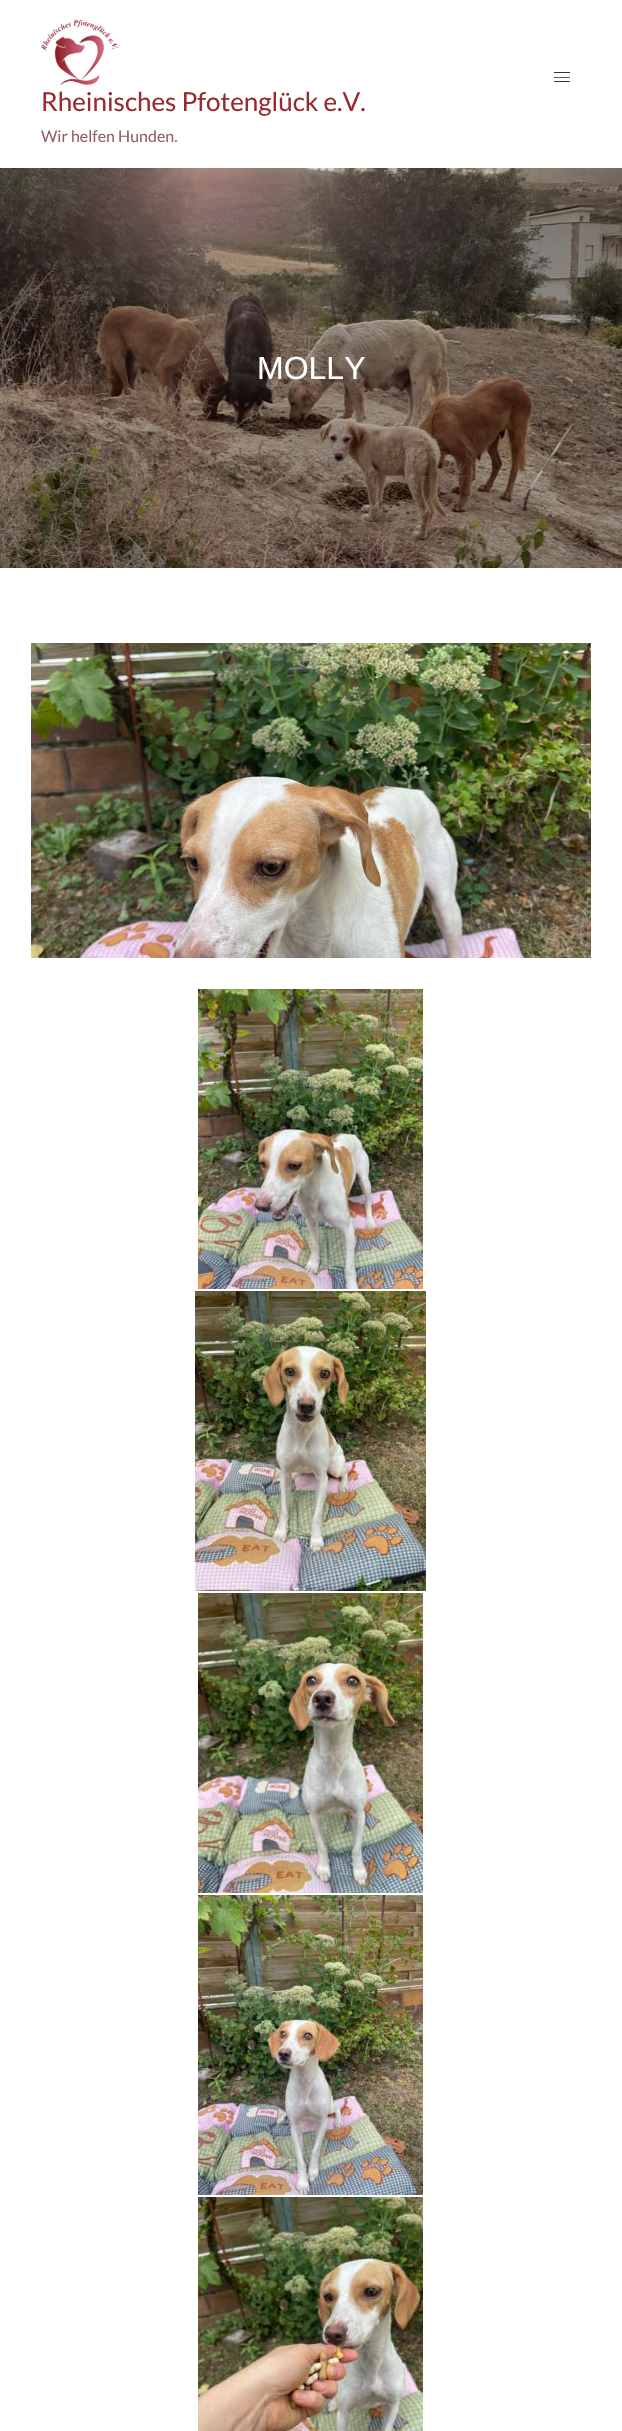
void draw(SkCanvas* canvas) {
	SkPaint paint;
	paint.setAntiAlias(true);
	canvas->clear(0xffffffff);
	paint.setColor(0xff333333);
	canvas->drawRect(SkRect::MakeXYWH(554, 72, 16, 1), paint);
	paint.setColor(0xff5c5c5c);
	canvas->drawRect(SkRect::MakeXYWH(554, 77, 16, 1), paint);
	paint.setColor(0xff333333);
	canvas->drawRect(SkRect::MakeXYWH(554, 81, 16, 1), paint);
	canvas->drawImageRect(SkImages::DeferredFromEncodedData(SkData::MakeFromFileName("img1.png")), SkRect::MakeXYWH(41, 20, 77, 65), SkSamplingOptions());
	SkFont f1(fontMgr->matchFamilyStyle("Lato", SkFontStyle::Normal()), 26);
	f1.setSubpixel(true);
	paint.setColor(0xff982b2f);
	canvas->drawString("Rheinisches Pfotenglück e.V.", 41, 111, f1, paint);
	SkFont f2(fontMgr->matchFamilyStyle("Lato", SkFontStyle::Normal()), 16);
	f2.setSubpixel(true);
	paint.setColor(0xff995d5e);
	canvas->drawString("Wir helfen Hunden.", 41, 142, f2, paint);
	canvas->drawImageRect(SkImages::DeferredFromEncodedData(SkData::MakeFromFileName("img2.png")), SkRect::MakeXYWH(0, 168, 622, 400), SkSamplingOptions());
	SkFont f3(fontMgr->matchFamilyStyle("Liberation Sans", SkFontStyle::Normal()), 32);
	f3.setSubpixel(true);
	paint.setColor(0xffffffff);
	canvas->drawString("MOLLY", 257, 379, f3, paint);
	canvas->drawImageRect(SkImages::DeferredFromEncodedData(SkData::MakeFromFileName("img3.png")), SkRect::MakeXYWH(31, 643, 560, 315), SkSamplingOptions());
	canvas->drawImageRect(SkImages::DeferredFromEncodedData(SkData::MakeFromFileName("img4.png")), SkRect::MakeXYWH(198, 989, 225, 300), SkSamplingOptions());
	canvas->drawImageRect(SkImages::DeferredFromEncodedData(SkData::MakeFromFileName("img5.png")), SkRect::MakeXYWH(195, 1291, 231, 300), SkSamplingOptions());
	canvas->drawImageRect(SkImages::DeferredFromEncodedData(SkData::MakeFromFileName("img6.png")), SkRect::MakeXYWH(198, 1593, 225, 300), SkSamplingOptions());
	canvas->drawImageRect(SkImages::DeferredFromEncodedData(SkData::MakeFromFileName("img7.png")), SkRect::MakeXYWH(198, 1895, 225, 300), SkSamplingOptions());
	canvas->drawImageRect(SkImages::DeferredFromEncodedData(SkData::MakeFromFileName("img8.png")), SkRect::MakeXYWH(198, 2197, 225, 234), SkSamplingOptions());
}
